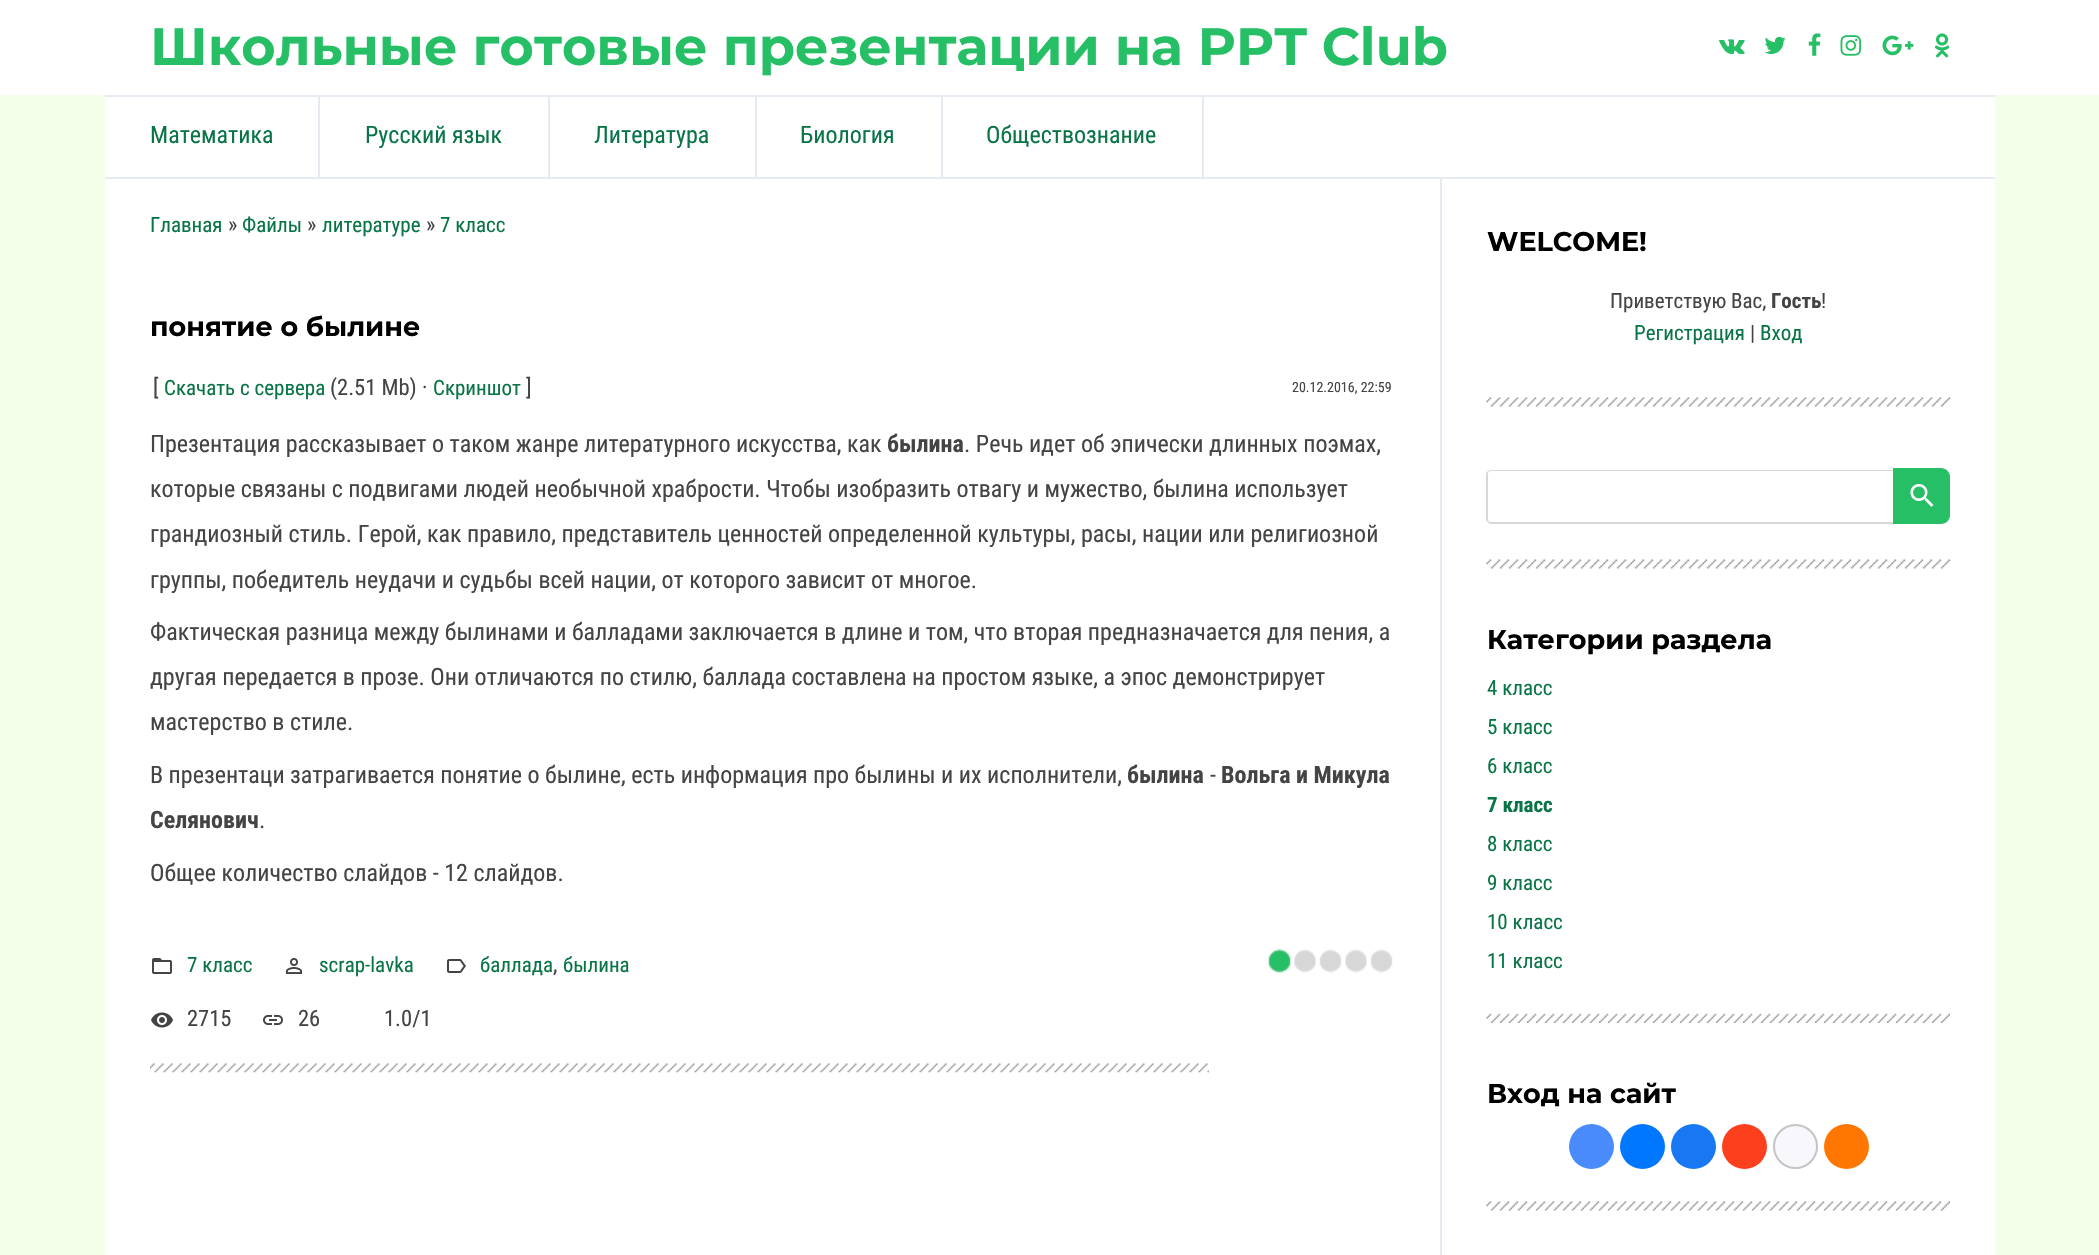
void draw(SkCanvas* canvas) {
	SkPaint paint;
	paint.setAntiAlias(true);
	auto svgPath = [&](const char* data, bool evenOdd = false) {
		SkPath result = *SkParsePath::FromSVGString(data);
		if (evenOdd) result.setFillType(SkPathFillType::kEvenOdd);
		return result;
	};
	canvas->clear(0xfff4ffe9);
	paint.setColor(0xffffffff);
	canvas->drawRect(SkRect::MakeXYWH(0, 0, 2099, 95), paint);
	SkFont f1(fontMgr->matchFamilyStyle("Montserrat", SkFontStyle::Bold()), 52.5);
	f1.setSubpixel(true);
	paint.setColor(0xff26bf66);
	canvas->drawString("Школьные готовые презентации на PPT Club", 150, 65, f1, paint);
	canvas->drawImageRect(SkImages::DeferredFromEncodedData(SkData::MakeFromFileName("img1.png")), SkRect::MakeXYWH(1719, 39, 26, 15), SkSamplingOptions());
	canvas->drawImageRect(SkImages::DeferredFromEncodedData(SkData::MakeFromFileName("img2.png")), SkRect::MakeXYWH(1764, 36, 22, 18), SkSamplingOptions());
	canvas->drawImageRect(SkImages::DeferredFromEncodedData(SkData::MakeFromFileName("img3.png")), SkRect::MakeXYWH(1808, 33, 13, 23), SkSamplingOptions());
	canvas->drawImageRect(SkImages::DeferredFromEncodedData(SkData::MakeFromFileName("img4.png")), SkRect::MakeXYWH(1840, 35, 22, 21), SkSamplingOptions());
	canvas->drawImageRect(SkImages::DeferredFromEncodedData(SkData::MakeFromFileName("img5.png")), SkRect::MakeXYWH(1882, 35, 32, 21), SkSamplingOptions());
	canvas->drawImageRect(SkImages::DeferredFromEncodedData(SkData::MakeFromFileName("img6.png")), SkRect::MakeXYWH(1934, 33, 16, 25), SkSamplingOptions());
	paint.setColor(0xffffffff);
	canvas->drawRect(SkRect::MakeXYWH(105, 97, 1890, 80), paint);
	paint.setColor(0xffe5ebf0);
	canvas->drawRect(SkRect::MakeXYWH(105, 95, 1890, 2), paint);
	canvas->drawRect(SkRect::MakeXYWH(105, 177, 1890, 2), paint);
	canvas->drawRect(SkRect::MakeXYWH(318, 96, 2, 81), paint);
	SkFont f2(fontMgr->matchFamilyStyle("Roboto Condensed", SkFontStyle::Normal()), 24);
	f2.setSubpixel(true);
	paint.setColor(0xff097546);
	canvas->drawString("Математика", 150, 143, f2, paint);
	paint.setColor(0xffe5ebf0);
	canvas->drawRect(SkRect::MakeXYWH(548, 96, 2, 81), paint);
	paint.setColor(0xff097546);
	canvas->drawString("Русский язык", 365, 143, f2, paint);
	paint.setColor(0xffe5ebf0);
	canvas->drawRect(SkRect::MakeXYWH(755, 96, 2, 81), paint);
	paint.setColor(0xff097546);
	canvas->drawString("Литература", 594, 143, f2, paint);
	paint.setColor(0xffe5ebf0);
	canvas->drawRect(SkRect::MakeXYWH(941, 96, 2, 81), paint);
	paint.setColor(0xff097546);
	canvas->drawString("Биология", 800, 143, f2, paint);
	paint.setColor(0xffe5ebf0);
	canvas->drawRect(SkRect::MakeXYWH(1202, 96, 2, 81), paint);
	paint.setColor(0xff097546);
	canvas->drawString("Обществознание", 986, 143, f2, paint);
	paint.setColor(0xffffffff);
	canvas->drawRect(SkRect::MakeXYWH(105, 179, 1890, 1076), paint);
	SkFont f3(fontMgr->matchFamilyStyle("Roboto Condensed", SkFontStyle::Normal()), 21);
	f3.setSubpixel(true);
	paint.setColor(0xff097546);
	canvas->drawString("Главная", 150, 232, f3, paint);
	SkFont f4(fontMgr->matchFamilyStyle("Roboto Condensed", SkFontStyle::Normal()), 22.5);
	f4.setSubpixel(true);
	paint.setColor(0xff444444);
	canvas->drawString("»", 228, 232, f4, paint);
	paint.setColor(0xff097546);
	canvas->drawString("Файлы", 242, 232, f3, paint);
	paint.setColor(0xff444444);
	canvas->drawString("»", 307, 232, f4, paint);
	paint.setColor(0xff097546);
	canvas->drawString("литературе", 322, 232, f3, paint);
	paint.setColor(0xff444444);
	canvas->drawString("»", 426, 232, f4, paint);
	paint.setColor(0xff097546);
	canvas->drawString("7 класс", 440, 232, f3, paint);
	SkFont f5(fontMgr->matchFamilyStyle("Montserrat", SkFontStyle::Bold()), 27);
	f5.setSubpixel(true);
	paint.setColor(0xff000000);
	canvas->drawString("понятие о былине", 150, 336, f5, paint);
	paint.setColor(0xff444444);
	canvas->drawString("[", 153, 395, f4, paint);
	paint.setColor(0xff097546);
	canvas->drawString("Скачать с сервера", 164, 395, f3, paint);
	paint.setColor(0xff444444);
	canvas->drawString("(2.51 Mb) ·", 330, 395, f4, paint);
	paint.setColor(0xff097546);
	canvas->drawString("Скриншот", 433, 395, f3, paint);
	paint.setColor(0xff444444);
	canvas->drawString("]", 526, 395, f4, paint);
	SkFont f6(fontMgr->matchFamilyStyle("Roboto Condensed", SkFontStyle::Normal()), 14);
	f6.setSubpixel(true);
	canvas->drawString("20.12.2016, 22:59", 1292, 392, f6, paint);
	canvas->drawString("Презентация рассказывает о таком жанре литературного искусства, как", 150, 452, f2, paint);
	SkFont f7(fontMgr->matchFamilyStyle("Roboto Condensed", SkFontStyle::Bold()), 24);
	f7.setSubpixel(true);
	canvas->drawString("былина", 887, 452, f7, paint);
	canvas->drawString(". Речь идет об эпически длинных поэмах,", 964, 452, f2, paint);
	canvas->drawString("которые связаны с подвигами людей необычной храбрости. Чтобы изобразить отвагу и мужество, былина использует", 150, 497, f2, paint);
	canvas->drawString("грандиозный стиль. Герой, как правило, представитель ценностей определенной культуры, расы, нации или религиозной", 150, 542, f2, paint);
	canvas->drawString("группы, победитель неудачи и судьбы всей нации, от которого зависит от многое.", 150, 588, f2, paint);
	canvas->drawString("Фактическая разница между былинами и балладами заключается в длине и том, что вторая предназначается для пения, а", 150, 640, f2, paint);
	canvas->drawString("другая передается в прозе. Они отличаются по стилю, баллада составлена на простом языке, а эпос демонстрирует", 150, 685, f2, paint);
	canvas->drawString("мастерство в стиле.", 150, 730, f2, paint);
	canvas->drawString("В презентаци затрагивается понятие о былине, есть информация про былины и их исполнители,", 150, 783, f2, paint);
	canvas->drawString("былина", 1127, 783, f7, paint);
	canvas->drawString("-", 1210, 783, f2, paint);
	canvas->drawString("Вольга и Микула", 1221, 783, f7, paint);
	canvas->drawString("Селянович", 150, 828, f7, paint);
	canvas->drawString(".", 259, 828, f2, paint);
	canvas->drawString("Общее количество слайдов - 12 слайдов.", 150, 881, f2, paint);
	canvas->drawImageRect(SkImages::DeferredFromEncodedData(SkData::MakeFromFileName("img7.png")), SkRect::MakeXYWH(152, 958, 20, 16), SkSamplingOptions());
	paint.setColor(0xff097546);
	canvas->drawString("7 класс", 187, 972, f3, paint);
	canvas->drawImageRect(SkImages::DeferredFromEncodedData(SkData::MakeFromFileName("img8.png")), SkRect::MakeXYWH(286, 958, 16, 16), SkSamplingOptions());
	canvas->drawString("scrap-lavka", 319, 972, f3, paint);
	canvas->drawImageRect(SkImages::DeferredFromEncodedData(SkData::MakeFromFileName("img9.png")), SkRect::MakeXYWH(447, 959, 19, 14), SkSamplingOptions());
	canvas->drawString("баллада", 480, 972, f3, paint);
	paint.setColor(0xff444444);
	canvas->drawString(",", 553, 972, f4, paint);
	paint.setColor(0xff097546);
	canvas->drawString("былина", 563, 972, f3, paint);
	canvas->drawImageRect(SkImages::DeferredFromEncodedData(SkData::MakeFromFileName("img10.png")), SkRect::MakeXYWH(1268, 949, 125, 25), SkSamplingOptions());
	canvas->drawImageRect(SkImages::DeferredFromEncodedData(SkData::MakeFromFileName("img11.png")), SkRect::MakeXYWH(1268, 949, 23, 24), SkSamplingOptions());
	canvas->drawImageRect(SkImages::DeferredFromEncodedData(SkData::MakeFromFileName("img12.png")), SkRect::MakeXYWH(151, 1012, 22, 16), SkSamplingOptions());
	paint.setColor(0xff444444);
	canvas->drawString("2715", 187, 1026, f4, paint);
	canvas->drawImageRect(SkImages::DeferredFromEncodedData(SkData::MakeFromFileName("img13.png")), SkRect::MakeXYWH(263, 1015, 20, 10), SkSamplingOptions());
	canvas->drawString("26", 298, 1026, f4, paint);
	canvas->drawString("1.0/1", 384, 1026, f4, paint);
	canvas->drawImageRect(SkImages::DeferredFromEncodedData(SkData::MakeFromFileName("img14.png")), SkRect::MakeXYWH(150, 1063, 1059, 10), SkSamplingOptions());
	paint.setColor(0xffe5ebf0);
	canvas->drawRect(SkRect::MakeXYWH(1440, 179, 2, 1076), paint);
	paint.setColor(0xff000000);
	canvas->drawString("WELCOME!", 1487, 251, f5, paint);
	paint.setColor(0xff444444);
	canvas->drawString("Приветствую Вас,", 1610, 308, f3, paint);
	SkFont f8(fontMgr->matchFamilyStyle("Roboto Condensed", SkFontStyle::Bold()), 21);
	f8.setSubpixel(true);
	canvas->drawString("Гость", 1771, 308, f8, paint);
	canvas->drawString("!", 1821, 308, f3, paint);
	paint.setColor(0xff097546);
	canvas->drawString("Регистрация", 1634, 340, f3, paint);
	paint.setColor(0xff444444);
	canvas->drawString("|", 1750, 340, f3, paint);
	paint.setColor(0xff097546);
	canvas->drawString("Вход", 1760, 340, f3, paint);
	canvas->drawImageRect(SkImages::DeferredFromEncodedData(SkData::MakeFromFileName("img15.png")), SkRect::MakeXYWH(1486, 397, 464, 10), SkSamplingOptions());
	paint.setColor(0xffd8d8d8);
	canvas->drawPath(svgPath("M1491 470H1893V524H1491C1489 524 1486 521 1486 519V474C1486 472 1489 470 1491 470ZM1491 471H1893V522H1491C1489 522 1488 521 1488 519V474C1488 472 1489 471 1491 471Z", true), paint);
	paint.setColor(0xff26bf66);
	canvas->drawPath(svgPath("M1893 468H1941C1946 468 1950 472 1950 477V515C1950 520 1946 524 1941 524H1893Z"), paint);
	canvas->drawImageRect(SkImages::DeferredFromEncodedData(SkData::MakeFromFileName("img16.png")), SkRect::MakeXYWH(1910, 483, 24, 24), SkSamplingOptions());
	canvas->drawImageRect(SkImages::DeferredFromEncodedData(SkData::MakeFromFileName("img15.png")), SkRect::MakeXYWH(1486, 559, 464, 10), SkSamplingOptions());
	paint.setColor(0xff000000);
	canvas->drawString("Категории раздела", 1487, 649, f5, paint);
	paint.setColor(0xff097546);
	canvas->drawString("4 класс", 1487, 695, f3, paint);
	canvas->drawString("5 класс", 1487, 734, f3, paint);
	canvas->drawString("6 класс", 1487, 773, f3, paint);
	canvas->drawString("7 класс", 1487, 812, f8, paint);
	canvas->drawString("8 класс", 1487, 851, f3, paint);
	canvas->drawString("9 класс", 1487, 890, f3, paint);
	canvas->drawString("10 класс", 1487, 929, f3, paint);
	canvas->drawString("11 класс", 1487, 968, f3, paint);
	canvas->drawImageRect(SkImages::DeferredFromEncodedData(SkData::MakeFromFileName("img17.png")), SkRect::MakeXYWH(1486, 1013, 464, 10), SkSamplingOptions());
	paint.setColor(0xff000000);
	canvas->drawString("Вход на сайт", 1487, 1103, f5, paint);
	paint.setColor(0xff498bfa);
	canvas->drawCircle(1591.5, 1146.5, 22.5, paint);
	paint.setColor(0xff0077ff);
	canvas->drawCircle(1642.5, 1146.5, 22.5, paint);
	paint.setColor(0xff1877f2);
	canvas->drawCircle(1693.5, 1146.5, 22.5, paint);
	paint.setColor(0xfffc3f1d);
	canvas->drawCircle(1744.5, 1146.5, 22.5, paint);
	paint.setColor(0xfff8f8fc);
	canvas->drawCircle(1795.5, 1146.5, 21.5, paint);
	paint.setStroke(true);
	paint.setStrokeWidth(2);
	paint.setColor(0xffc4c4c4);
	canvas->drawCircle(1795.5, 1146.5, 21.5, paint);
	paint.setStroke(false);
	paint.setColor(0xffff7700);
	canvas->drawCircle(1846.5, 1146.5, 22.5, paint);
	canvas->drawImageRect(SkImages::DeferredFromEncodedData(SkData::MakeFromFileName("img15.png")), SkRect::MakeXYWH(1486, 1201, 464, 10), SkSamplingOptions());
}
